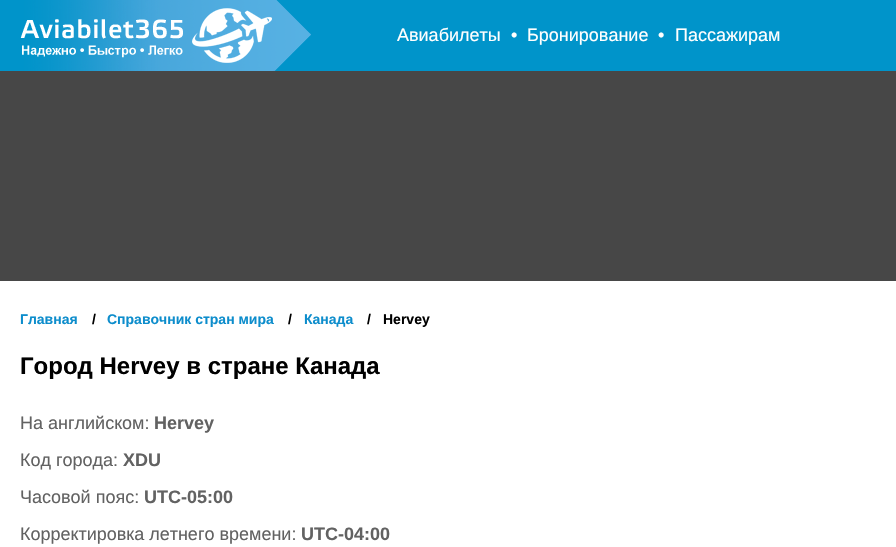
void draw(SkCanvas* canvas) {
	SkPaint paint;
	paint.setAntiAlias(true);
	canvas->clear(0xffffffff);
	paint.setColor(0xff0094ca);
	canvas->drawRect(SkRect::MakeXYWH(0, 0, 896, 71), paint);
	canvas->drawImageRect(SkImages::DeferredFromEncodedData(SkData::MakeFromFileName("img1.png")), SkRect::MakeXYWH(20, 0, 291, 71), SkSamplingOptions());
	SkFont f1(fontMgr->matchFamilyStyle("Liberation Sans", SkFontStyle::Normal()), 18);
	f1.setSubpixel(true);
	paint.setColor(0xffffffff);
	canvas->drawString("Авиабилеты", 397, 41, f1, paint);
	canvas->drawString("•", 511, 41, f1, paint);
	canvas->drawString("Бронирование", 527, 41, f1, paint);
	canvas->drawString("•", 658, 41, f1, paint);
	canvas->drawString("Пассажирам", 675, 41, f1, paint);
	paint.setColor(0xff474747);
	canvas->drawRect(SkRect::MakeXYWH(0, 71, 896, 210), paint);
	SkFont f2(fontMgr->matchFamilyStyle("Liberation Sans", SkFontStyle::Bold()), 14);
	f2.setSubpixel(true);
	paint.setColor(0xff0d8dcc);
	canvas->drawString("Главная", 20, 324, f2, paint);
	paint.setColor(0xff000000);
	canvas->drawString("/", 92, 324, f2, paint);
	paint.setColor(0xff0d8dcc);
	canvas->drawString("Справочник стран мира", 107, 324, f2, paint);
	paint.setColor(0xff000000);
	canvas->drawString("/", 288, 324, f2, paint);
	paint.setColor(0xff0d8dcc);
	canvas->drawString("Канада", 304, 324, f2, paint);
	paint.setColor(0xff000000);
	canvas->drawString("/", 367, 324, f2, paint);
	canvas->drawString("Hervey", 383, 324, f2, paint);
	SkFont f3(fontMgr->matchFamilyStyle("Liberation Sans", SkFontStyle::Bold()), 24);
	f3.setSubpixel(true);
	canvas->drawString("Город Hervey в стране Канада", 20, 374, f3, paint);
	paint.setColor(0xff626262);
	canvas->drawString("На английском:", 20, 429, f1, paint);
	SkFont f4(fontMgr->matchFamilyStyle("Liberation Sans", SkFontStyle::Bold()), 18);
	f4.setSubpixel(true);
	canvas->drawString("Hervey", 154, 429, f4, paint);
	canvas->drawString("Код города:", 20, 466, f1, paint);
	canvas->drawString("XDU", 123, 466, f4, paint);
	canvas->drawString("Часовой пояс:", 20, 503, f1, paint);
	canvas->drawString("UTC-05:00", 144, 503, f4, paint);
	canvas->drawString("Корректировка летнего времени:", 20, 540, f1, paint);
	canvas->drawString("UTC-04:00", 301, 540, f4, paint);
}
